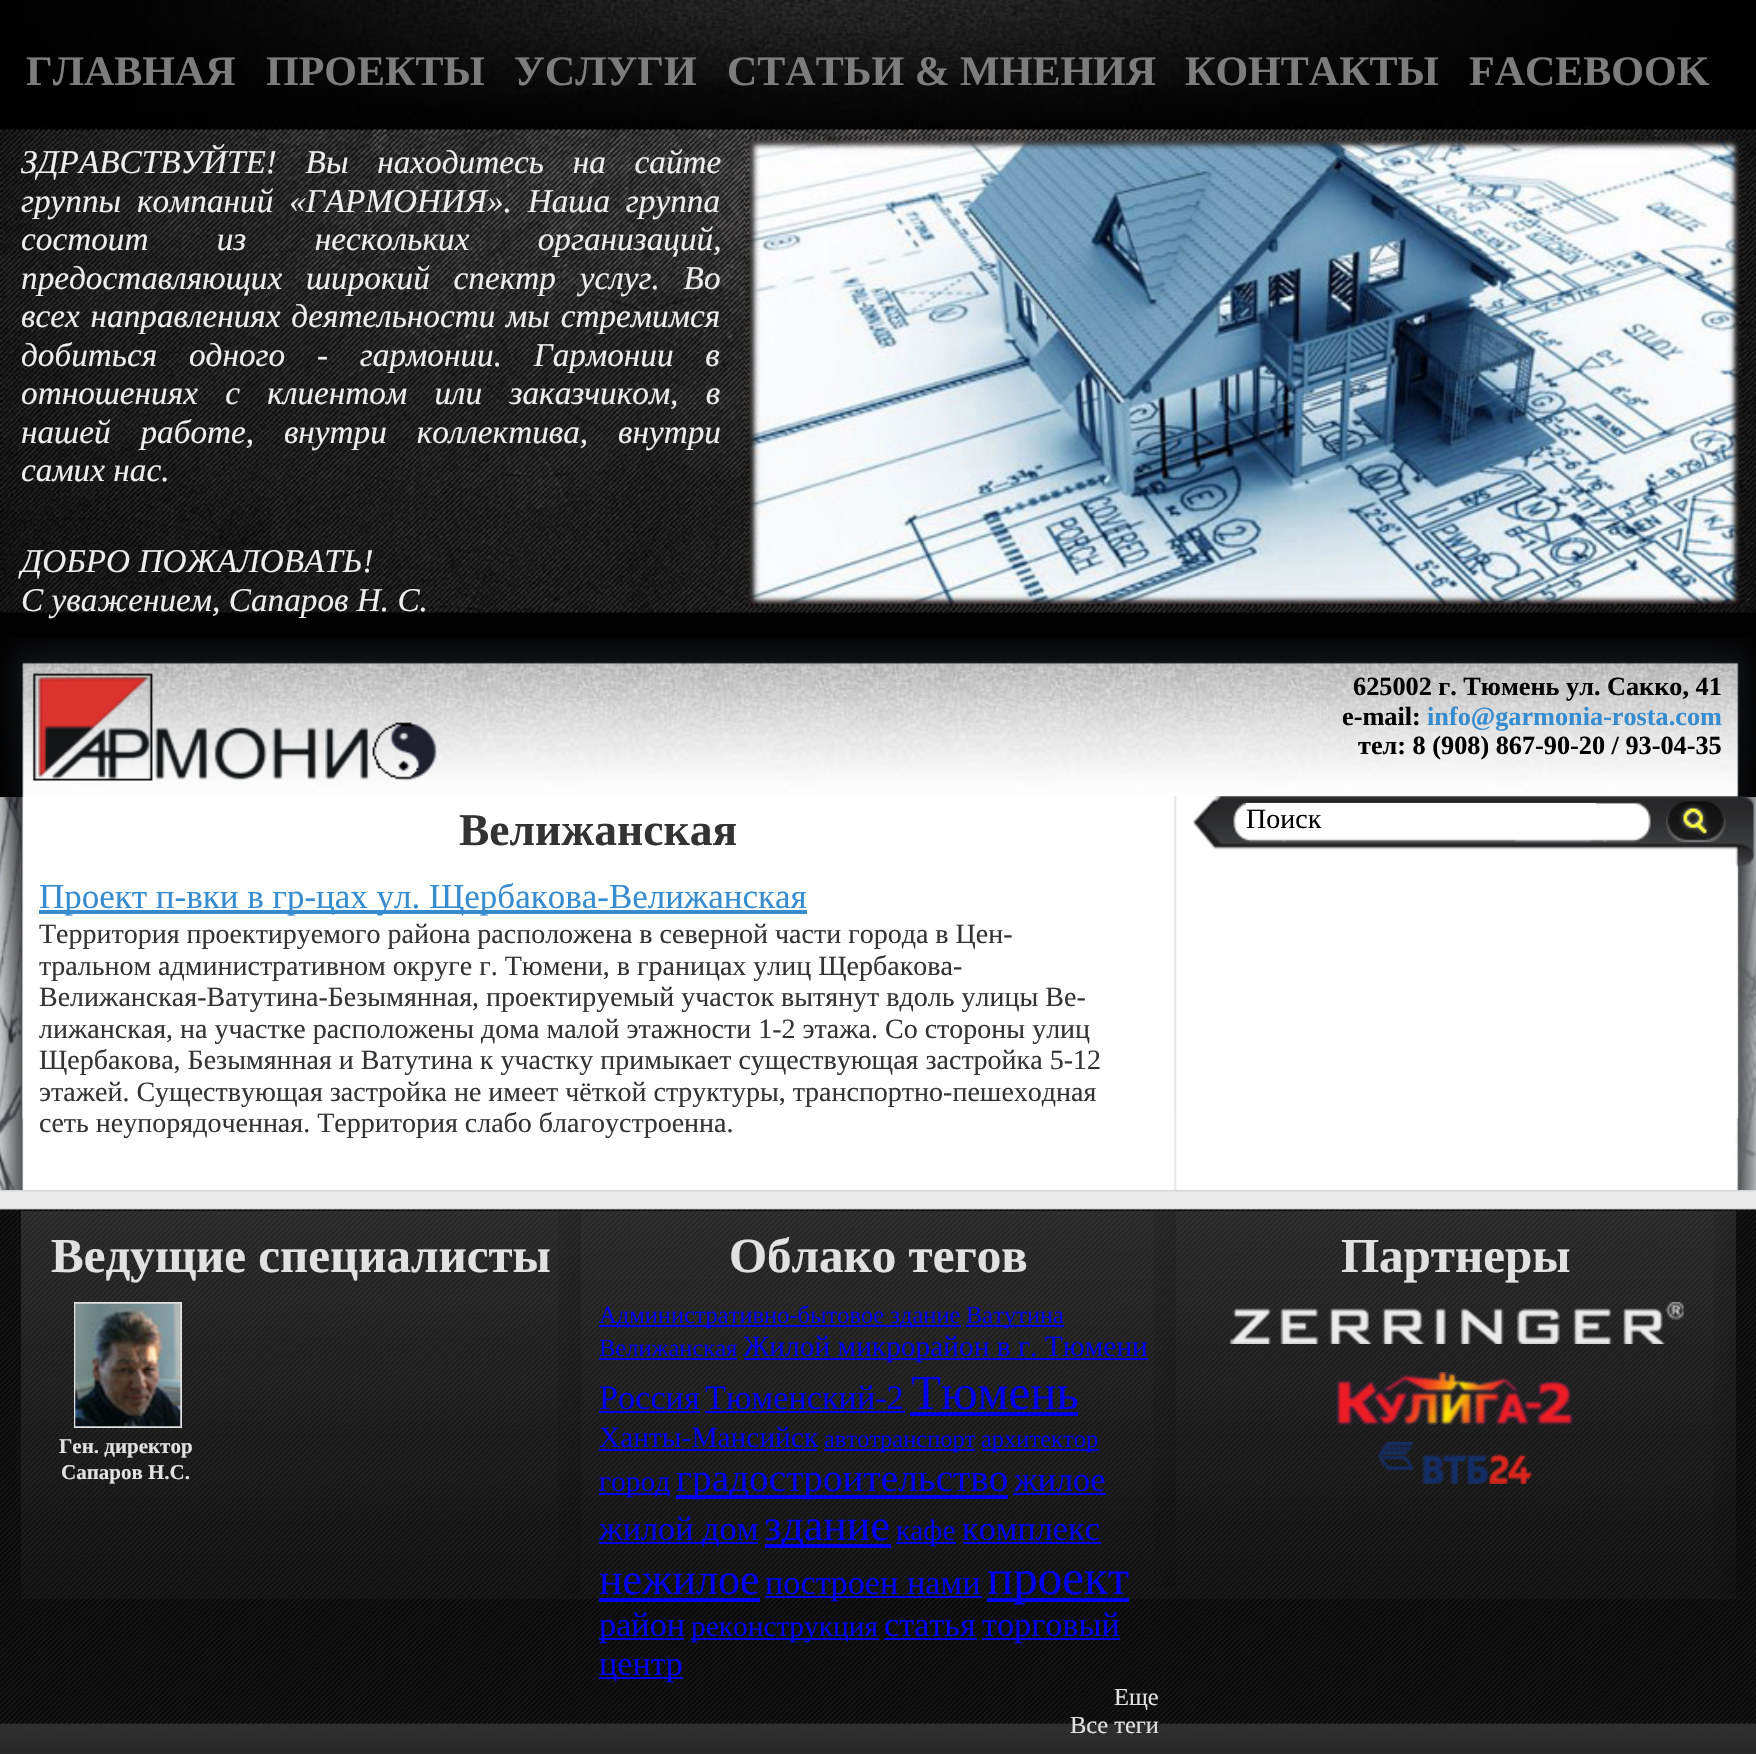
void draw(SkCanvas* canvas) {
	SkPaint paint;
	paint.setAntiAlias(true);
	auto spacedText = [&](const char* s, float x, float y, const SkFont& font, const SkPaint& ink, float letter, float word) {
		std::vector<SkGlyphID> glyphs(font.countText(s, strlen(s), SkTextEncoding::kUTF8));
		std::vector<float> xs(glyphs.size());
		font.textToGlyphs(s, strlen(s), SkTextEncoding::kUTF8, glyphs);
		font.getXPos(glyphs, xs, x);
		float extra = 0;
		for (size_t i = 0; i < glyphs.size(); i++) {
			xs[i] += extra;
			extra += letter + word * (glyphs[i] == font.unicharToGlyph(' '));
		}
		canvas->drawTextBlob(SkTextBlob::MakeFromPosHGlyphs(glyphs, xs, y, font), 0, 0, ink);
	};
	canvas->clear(0xffffffff);
	canvas->drawImageRect(SkImages::DeferredFromEncodedData(SkData::MakeFromFileName("img1.png")), SkRect::MakeXYWH(0, 797, 1756, 393), SkSamplingOptions());
	paint.setColor(0xff010101);
	canvas->drawRect(SkRect::MakeXYWH(0, 612, 1756, 185), paint);
	canvas->drawImageRect(SkImages::DeferredFromEncodedData(SkData::MakeFromFileName("img2.png")), SkRect::MakeXYWH(0, 0, 1756, 613), SkSamplingOptions());
	SkFont f1(fontMgr->matchFamilyStyle("Liberation Serif", SkFontStyle::Bold()), 42);
	f1.setSubpixel(true);
	paint.setColor(0xff7d7d7d);
	canvas->drawString("ГЛАВНАЯ", 26, 85, f1, paint);
	canvas->drawString("ПРОЕКТЫ", 266, 85, f1, paint);
	canvas->drawString("УСЛУГИ", 514, 85, f1, paint);
	canvas->drawString("СТАТЬИ & МНЕНИЯ", 727, 85, f1, paint);
	canvas->drawString("КОНТАКТЫ", 1185, 85, f1, paint);
	canvas->drawString("FACEBOOK", 1469, 85, f1, paint);
	SkFont f2(fontMgr->matchFamilyStyle("Liberation Serif", SkFontStyle::Italic()), 33.25);
	f2.setSubpixel(true);
	paint.setColor(0xffeeeeee);
	spacedText("ЗДРАВСТВУЙТЕ! Вы находитесь на сайте", 21, 173, f2, paint, 0, 20.5);
	spacedText("группы компаний «ГАРМОНИЯ». Наша группа", 21, 212, f2, paint, 0, 7.5);
	spacedText("состоит из нескольких организаций,", 21, 250, f2, paint, 0, 60);
	spacedText("предоставляющих широкий спектр услуг. Во", 21, 289, f2, paint, 0, 15.5);
	spacedText("всех направлениях деятельности мы стремимся", 21, 327, f2, paint, 0, 2.5);
	spacedText("добиться одного - гармонии. Гармонии в", 21, 366, f2, paint, 0, 23.5);
	spacedText("отношениях с клиентом или заказчиком, в", 21, 404, f2, paint, 0, 19);
	spacedText("нашей работе, внутри коллектива, внутри", 21, 443, f2, paint, 0, 21.5);
	canvas->drawString("самих нас.", 21, 481, f2, paint);
	canvas->drawString("ДОБРО ПОЖАЛОВАТЬ!", 21, 572, f2, paint);
	canvas->drawString("С уважением, Сапаров Н. С.", 21, 611, f2, paint);
	canvas->drawImageRect(SkImages::DeferredFromEncodedData(SkData::MakeFromFileName("img3.png")), SkRect::MakeXYWH(745, 136, 998, 470), SkSamplingOptions());
	canvas->drawImageRect(SkImages::DeferredFromEncodedData(SkData::MakeFromFileName("img4.png")), SkRect::MakeXYWH(0, 638, 1756, 481), SkSamplingOptions());
	canvas->drawImageRect(SkImages::DeferredFromEncodedData(SkData::MakeFromFileName("img5.png")), SkRect::MakeXYWH(32, 673, 406, 108), SkSamplingOptions());
	SkFont f3(fontMgr->matchFamilyStyle("Liberation Serif", SkFontStyle::Bold()), 26.25);
	f3.setSubpixel(true);
	paint.setColor(0xff000000);
	canvas->drawString("625002 г. Тюмень ул. Сакко, 41", 1353, 695, f3, paint);
	canvas->drawString("e-mail:", 1342, 725, f3, paint);
	paint.setColor(0xff368cce);
	canvas->drawString("info@garmonia-rosta.com", 1427, 725, f3, paint);
	paint.setColor(0xff000000);
	canvas->drawString("тел: 8 (908) 867-90-20 / 93-04-35", 1358, 754, f3, paint);
	SkFont f4(fontMgr->matchFamilyStyle("Liberation Serif", SkFontStyle::Bold()), 45.5);
	f4.setSubpixel(true);
	paint.setColor(0xff333333);
	canvas->drawString("Велижанская", 459, 845, f4, paint);
	paint.setColor(0xff368cce);
	canvas->drawRect(SkRect::MakeXYWH(39, 910, 768, 4), paint);
	SkFont f5(fontMgr->matchFamilyStyle("Liberation Serif", SkFontStyle::Normal()), 35);
	f5.setSubpixel(true);
	canvas->drawString("Проект п-вки в гр-цах ул. Щербакова-Велижанская", 39, 908, f5, paint);
	SkFont f6(fontMgr->matchFamilyStyle("Liberation Serif", SkFontStyle::Normal()), 28);
	f6.setSubpixel(true);
	paint.setColor(0xff333333);
	canvas->drawString("Территория проектируемого района расположена в северной части города в Цен-", 39, 943, f6, paint);
	canvas->drawString("тральном административном округе г. Тюмени, в границах улиц Щербакова-", 39, 975, f6, paint);
	canvas->drawString("Велижанская-Ватутина-Безымянная, проектируемый участок вытянут вдоль улицы Ве-", 39, 1006, f6, paint);
	canvas->drawString("лижанская, на участке расположены дома малой этажности 1-2 этажа. Со стороны улиц", 39, 1038, f6, paint);
	canvas->drawString("Щербакова, Безымянная и Ватутина к участку примыкает существующая застройка 5-12", 39, 1069, f6, paint);
	canvas->drawString("этажей. Существующая застройка не имеет чёткой структуры, транспортно-пешеходная", 39, 1101, f6, paint);
	canvas->drawString("сеть неупорядоченная. Территория слабо благоустроенна.", 39, 1132, f6, paint);
	canvas->drawImageRect(SkImages::DeferredFromEncodedData(SkData::MakeFromFileName("img6.png")), SkRect::MakeXYWH(1193, 796, 561, 71), SkSamplingOptions());
	paint.setColor(0xffffffff);
	canvas->drawRect(SkRect::MakeXYWH(1246, 803, 350, 3), paint);
	paint.setColor(0xff000000);
	canvas->drawString("Поиск", 1246, 828, f6, paint);
	canvas->drawImageRect(SkImages::DeferredFromEncodedData(SkData::MakeFromFileName("img7.png")), SkRect::MakeXYWH(1666, 801, 60, 41), SkSamplingOptions());
	canvas->drawImageRect(SkImages::DeferredFromEncodedData(SkData::MakeFromFileName("img8.png")), SkRect::MakeXYWH(0, 1190, 1756, 564), SkSamplingOptions());
	canvas->drawImageRect(SkImages::DeferredFromEncodedData(SkData::MakeFromFileName("img9.png")), SkRect::MakeXYWH(21, 1211, 1715, 388), SkSamplingOptions());
	canvas->drawImageRect(SkImages::DeferredFromEncodedData(SkData::MakeFromFileName("img10.png")), SkRect::MakeXYWH(558, 1211, 23, 384), SkSamplingOptions());
	SkFont f7(fontMgr->matchFamilyStyle("Liberation Serif", SkFontStyle::Bold()), 49);
	f7.setSubpixel(true);
	paint.setColor(0xffe1e1e1);
	canvas->drawString("Ведущие специалисты", 51, 1272, f7, paint);
	paint.setStroke(true);
	paint.setStrokeWidth(2);
	canvas->drawRect(SkRect::MakeXYWH(75, 1303, 106, 124), paint);
	canvas->drawImageRect(SkImages::DeferredFromEncodedData(SkData::MakeFromFileName("img11.png")), SkRect::MakeXYWH(75, 1303, 106, 124), SkSamplingOptions());
	SkFont f8(fontMgr->matchFamilyStyle("Liberation Serif", SkFontStyle::Bold()), 21);
	f8.setSubpixel(true);
	paint.setStroke(false);
	canvas->drawString("Ген. директор", 59, 1453, f8, paint);
	canvas->drawString("Сапаров Н.С.", 61, 1479, f8, paint);
	canvas->drawImageRect(SkImages::DeferredFromEncodedData(SkData::MakeFromFileName("img12.png")), SkRect::MakeXYWH(1153, 1211, 23, 376), SkSamplingOptions());
	canvas->drawString("Облако тегов", 729, 1272, f7, paint);
	paint.setColor(0xff0000ee);
	canvas->drawRect(SkRect::MakeXYWH(599, 1325, 362, 2), paint);
	SkFont f9(fontMgr->matchFamilyStyle("Liberation Serif", SkFontStyle::Normal()), 24.5);
	f9.setSubpixel(true);
	canvas->drawString("Административно-бытовое здание", 599, 1323, f9, paint);
	canvas->drawRect(SkRect::MakeXYWH(966, 1325, 98, 2), paint);
	canvas->drawString("Ватутина", 966, 1323, f9, paint);
	canvas->drawString("Велижанская", 599, 1356, f9, paint);
	canvas->drawRect(SkRect::MakeXYWH(599, 1358, 138, 2), paint);
	canvas->drawRect(SkRect::MakeXYWH(744, 1358, 404, 2), paint);
	SkFont f10(fontMgr->matchFamilyStyle("Liberation Serif", SkFontStyle::Normal()), 29.4);
	f10.setSubpixel(true);
	canvas->drawString("Жилой микрорайон в г. Тюмени", 743, 1356, f10, paint);
	SkFont f11(fontMgr->matchFamilyStyle("Liberation Serif", SkFontStyle::Normal()), 34.25);
	f11.setSubpixel(true);
	canvas->drawString("Россия", 599, 1409, f11, paint);
	canvas->drawRect(SkRect::MakeXYWH(599, 1411, 101, 2), paint);
	canvas->drawString("Тюменский-2", 705, 1409, f11, paint);
	canvas->drawRect(SkRect::MakeXYWH(705, 1411, 200, 2), paint);
	SkFont f12(fontMgr->matchFamilyStyle("Liberation Serif", SkFontStyle::Normal()), 49);
	f12.setSubpixel(true);
	canvas->drawString("Тюмень", 911, 1409, f12, paint);
	canvas->drawRect(SkRect::MakeXYWH(910, 1412, 168, 4), paint);
	canvas->drawString("Ханты-Мансийск", 599, 1447, f10, paint);
	canvas->drawRect(SkRect::MakeXYWH(599, 1449, 218, 2), paint);
	canvas->drawRect(SkRect::MakeXYWH(824, 1449, 151, 2), paint);
	canvas->drawString("автотранспорт", 824, 1447, f9, paint);
	canvas->drawRect(SkRect::MakeXYWH(982, 1449, 117, 2), paint);
	canvas->drawString("архитектор", 981, 1447, f9, paint);
	canvas->drawRect(SkRect::MakeXYWH(599, 1493, 71, 2), paint);
	canvas->drawString("город", 599, 1491, f10, paint);
	canvas->drawRect(SkRect::MakeXYWH(676, 1495, 332, 4), paint);
	SkFont f13(fontMgr->matchFamilyStyle("Liberation Serif", SkFontStyle::Normal()), 39.25);
	f13.setSubpixel(true);
	canvas->drawString("градостроительство", 676, 1491, f13, paint);
	canvas->drawString("жилое", 1014, 1491, f11, paint);
	canvas->drawRect(SkRect::MakeXYWH(1013, 1493, 93, 2), paint);
	canvas->drawRect(SkRect::MakeXYWH(599, 1542, 159, 2), paint);
	canvas->drawString("жилой дом", 599, 1540, f11, paint);
	canvas->drawRect(SkRect::MakeXYWH(765, 1544, 126, 4), paint);
	SkFont f14(fontMgr->matchFamilyStyle("Liberation Serif", SkFontStyle::Normal()), 44);
	f14.setSubpixel(true);
	canvas->drawString("здание", 764, 1540, f14, paint);
	canvas->drawRect(SkRect::MakeXYWH(896, 1542, 60, 2), paint);
	canvas->drawString("кафе", 896, 1540, f10, paint);
	canvas->drawString("комплекс", 962, 1540, f11, paint);
	canvas->drawRect(SkRect::MakeXYWH(963, 1542, 138, 2), paint);
	canvas->drawString("нежилое", 599, 1594, f14, paint);
	canvas->drawRect(SkRect::MakeXYWH(599, 1598, 161, 4), paint);
	canvas->drawRect(SkRect::MakeXYWH(765, 1596, 217, 2), paint);
	canvas->drawString("построен нами", 765, 1594, f11, paint);
	canvas->drawRect(SkRect::MakeXYWH(987, 1598, 142, 4), paint);
	canvas->drawString("проект", 987, 1594, f12, paint);
	canvas->drawRect(SkRect::MakeXYWH(599, 1638, 85, 2), paint);
	canvas->drawString("район", 599, 1636, f11, paint);
	canvas->drawRect(SkRect::MakeXYWH(691, 1638, 188, 2), paint);
	canvas->drawString("реконструкция", 691, 1636, f10, paint);
	canvas->drawString("статья", 884, 1636, f11, paint);
	canvas->drawRect(SkRect::MakeXYWH(884, 1638, 93, 2), paint);
	canvas->drawRect(SkRect::MakeXYWH(982, 1638, 138, 2), paint);
	canvas->drawString("торговый", 982, 1636, f11, paint);
	canvas->drawRect(SkRect::MakeXYWH(599, 1677, 84, 2), paint);
	canvas->drawString("центр", 599, 1675, f11, paint);
	paint.setColor(0xffe1e1e1);
	canvas->drawString("Еще", 1114, 1705, f9, paint);
	canvas->drawString("Все теги", 1070, 1733, f9, paint);
	canvas->drawImageRect(SkImages::DeferredFromEncodedData(SkData::MakeFromFileName("img13.png")), SkRect::MakeXYWH(1713, 1211, 23, 383), SkSamplingOptions());
	canvas->drawString("Партнеры", 1341, 1272, f7, paint);
	canvas->drawImageRect(SkImages::DeferredFromEncodedData(SkData::MakeFromFileName("img14.png")), SkRect::MakeXYWH(1229, 1302, 455, 42), SkSamplingOptions());
	canvas->drawImageRect(SkImages::DeferredFromEncodedData(SkData::MakeFromFileName("img15.png")), SkRect::MakeXYWH(1336, 1372, 238, 53), SkSamplingOptions());
	canvas->drawImageRect(SkImages::DeferredFromEncodedData(SkData::MakeFromFileName("img16.png")), SkRect::MakeXYWH(1378, 1442, 154, 42), SkSamplingOptions());
}
